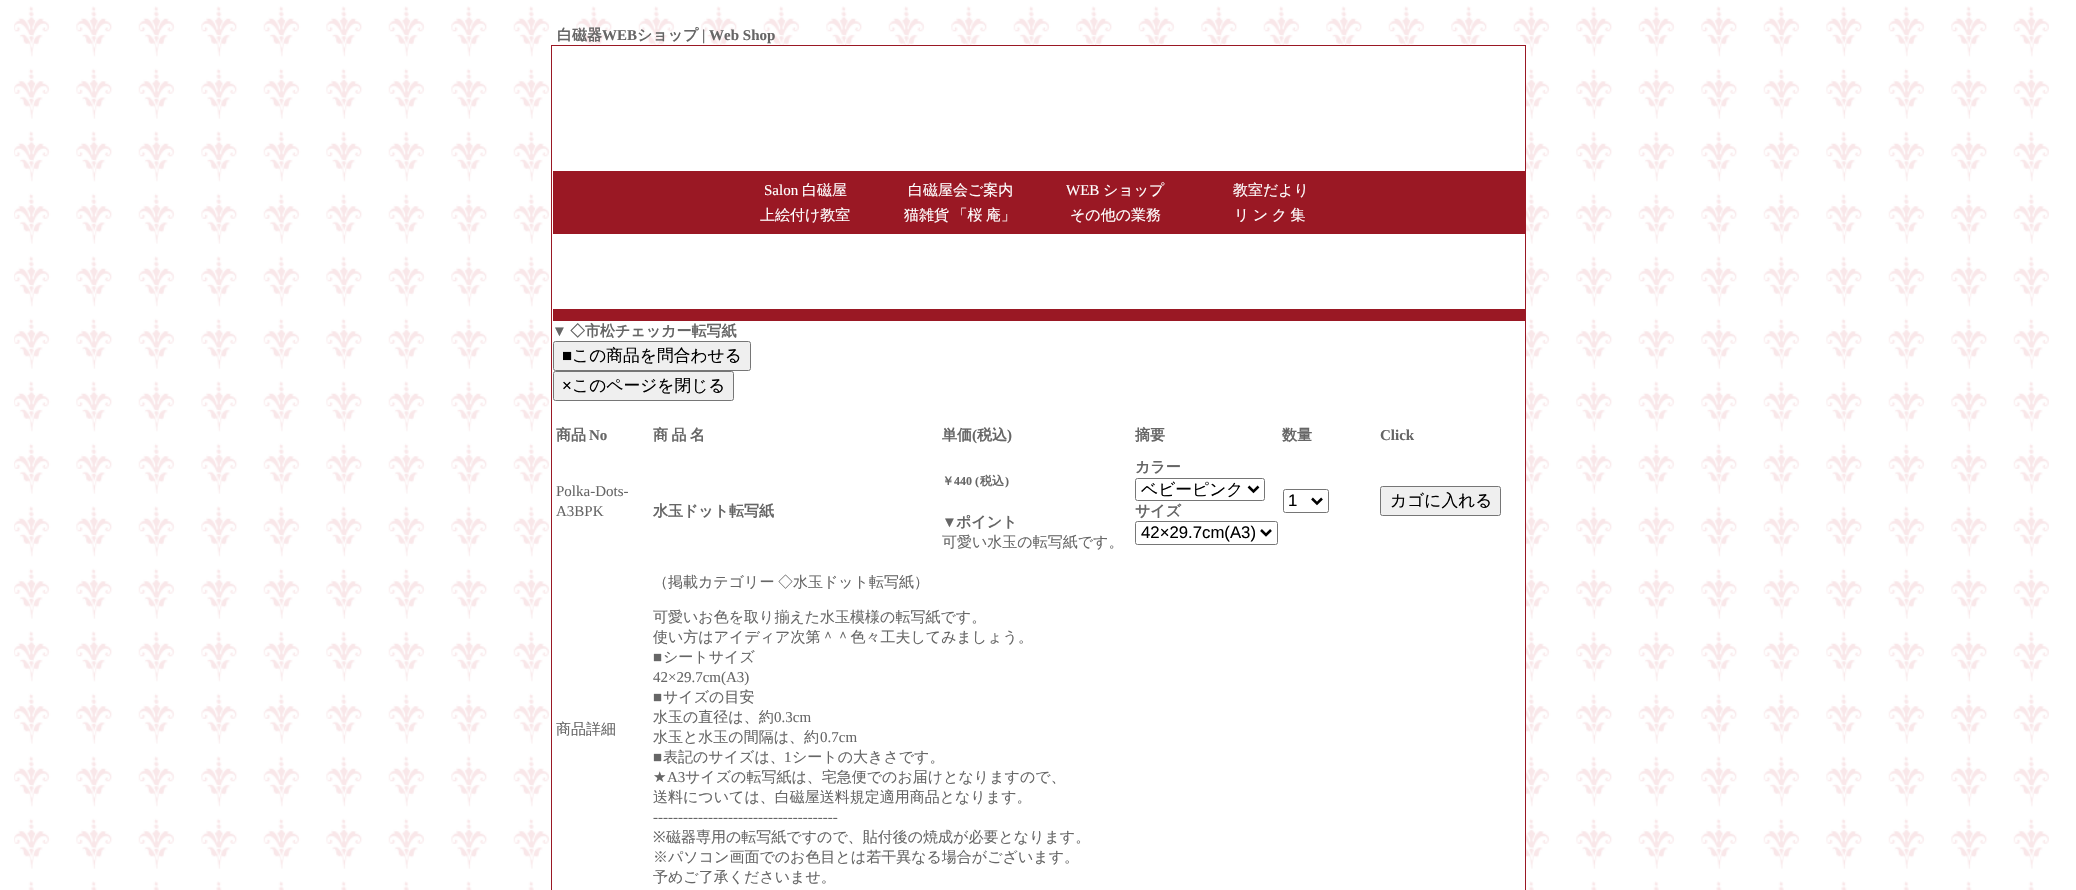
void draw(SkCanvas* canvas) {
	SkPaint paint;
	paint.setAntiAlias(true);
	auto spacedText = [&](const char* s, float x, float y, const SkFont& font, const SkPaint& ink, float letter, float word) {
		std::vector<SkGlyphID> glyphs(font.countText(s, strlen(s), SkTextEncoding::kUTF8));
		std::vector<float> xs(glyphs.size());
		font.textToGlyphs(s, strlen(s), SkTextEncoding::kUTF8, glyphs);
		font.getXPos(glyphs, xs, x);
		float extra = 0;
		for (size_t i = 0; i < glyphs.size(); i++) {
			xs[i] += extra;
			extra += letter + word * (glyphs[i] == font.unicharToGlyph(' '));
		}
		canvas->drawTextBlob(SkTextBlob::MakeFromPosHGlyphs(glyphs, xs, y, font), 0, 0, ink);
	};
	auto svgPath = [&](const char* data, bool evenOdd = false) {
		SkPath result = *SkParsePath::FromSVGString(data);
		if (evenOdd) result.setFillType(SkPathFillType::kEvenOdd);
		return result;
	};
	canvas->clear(0xffffffff);
	canvas->drawImageRect(SkImages::DeferredFromEncodedData(SkData::MakeFromFileName("img1.png")), SkRect::MakeXYWH(14, 6, 2035, 884), SkSamplingOptions());
	SkFont f1(fontMgr->matchFamilyStyle("WenQuanYi Zen Hei", SkFontStyle::Bold()), 15);
	f1.setSubpixel(true);
	paint.setColor(0xff666666);
	canvas->drawString("白磁器", 557, 40, f1, paint);
	SkFont f2(fontMgr->matchFamilyStyle("Liberation Serif", SkFontStyle::Bold()), 15);
	f2.setSubpixel(true);
	canvas->drawString("WEB", 602, 40, f2, paint);
	canvas->drawString("ショップ", 637, 40, f1, paint);
	canvas->drawString("| Web Shop", 702, 40, f2, paint);
	paint.setColor(0xffffffff);
	canvas->drawRect(SkRect::MakeXYWH(576, 46, 949, 844), paint);
	paint.setStroke(true);
	paint.setStrokeWidth(1);
	paint.setColor(0xff9a1824);
	canvas->drawRect(SkRect::MakeXYWH(551.5, 45.5, 974, 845), paint);
	paint.setStroke(false);
	canvas->drawRect(SkRect::MakeXYWH(553, 171, 972, 63), paint);
	SkFont f3(fontMgr->matchFamilyStyle("Liberation Serif", SkFontStyle::Normal()), 15);
	f3.setSubpixel(true);
	paint.setColor(0xffffffff);
	canvas->drawString("Salon", 764, 195, f3, paint);
	SkFont f4(fontMgr->matchFamilyStyle("WenQuanYi Zen Hei", SkFontStyle(500, SkFontStyle::kNormal_Width, SkFontStyle::kUpright_Slant)), 15);
	f4.setSubpixel(true);
	canvas->drawString("白磁屋", 802, 195, f4, paint);
	canvas->drawString("白磁屋会ご案内", 908, 195, f4, paint);
	canvas->drawString("WEB", 1066, 195, f3, paint);
	canvas->drawString("ショップ", 1103, 195, f4, paint);
	canvas->drawString("教室だより", 1233, 195, f4, paint);
	canvas->drawString("上絵付け教室", 760, 220, f4, paint);
	spacedText("猫雑貨 「桜 庵」", 904, 220, f4, paint, 0, -1);
	canvas->drawString("その他の業務", 1070, 220, f4, paint);
	spacedText("リ ン ク 集", 1234, 220, f4, paint, 0, -1);
	paint.setColor(0xff9a1824);
	canvas->drawRect(SkRect::MakeXYWH(553, 309, 972, 12), paint);
	paint.setColor(0xff666666);
	canvas->drawString("▼", 552, 336, f2, paint);
	canvas->drawString("◇市松チェッカー転写紙", 570, 336, f1, paint);
	paint.setColor(0xffefefef);
	canvas->drawRoundRect(SkRect::MakeXYWH(553.5, 341.5, 197, 29), 2, 2, paint);
	paint.setStroke(true);
	paint.setColor(0xff767676);
	canvas->drawRoundRect(SkRect::MakeXYWH(553.5, 341.5, 197, 29), 2, 2, paint);
	SkFont f5(fontMgr->matchFamilyStyle("Liberation Sans", SkFontStyle::Normal()), 16.75);
	f5.setSubpixel(true);
	paint.setStroke(false);
	paint.setColor(0xff000000);
	canvas->drawString("■", 562, 361, f5, paint);
	SkFont f6(fontMgr->matchFamilyStyle("WenQuanYi Zen Hei", SkFontStyle(500, SkFontStyle::kNormal_Width, SkFontStyle::kUpright_Slant)), 16.75);
	f6.setSubpixel(true);
	canvas->drawString("この商品を問合わせる", 572, 361, f6, paint);
	paint.setColor(0xffefefef);
	canvas->drawRoundRect(SkRect::MakeXYWH(553.5, 371.5, 180, 29), 2, 2, paint);
	paint.setStroke(true);
	paint.setColor(0xff767676);
	canvas->drawRoundRect(SkRect::MakeXYWH(553.5, 371.5, 180, 29), 2, 2, paint);
	paint.setStroke(false);
	paint.setColor(0xff000000);
	canvas->drawString("×", 562, 391, f5, paint);
	canvas->drawString("このページを閉じる", 572, 391, f6, paint);
	paint.setColor(0xff666666);
	canvas->drawString("商品", 556, 440, f1, paint);
	canvas->drawString("No", 589, 440, f2, paint);
	spacedText("商 品 名", 653, 440, f1, paint, 0, -1);
	canvas->drawString("単価", 942, 440, f1, paint);
	canvas->drawString("(", 972, 440, f2, paint);
	canvas->drawString("税込", 977, 440, f1, paint);
	canvas->drawString(")", 1007, 440, f2, paint);
	canvas->drawString("摘要", 1135, 440, f1, paint);
	canvas->drawString("数量", 1282, 440, f1, paint);
	canvas->drawString("Click", 1380, 440, f2, paint);
	canvas->drawString("Polka-Dots-", 556, 496, f3, paint);
	canvas->drawString("A3BPK", 556, 516, f3, paint);
	SkFont f7(fontMgr->matchFamilyStyle("WenQuanYi Zen Hei", SkFontStyle::Bold()), 12);
	f7.setSubpixel(true);
	canvas->drawString("￥", 942, 485, f7, paint);
	SkFont f8(fontMgr->matchFamilyStyle("Liberation Serif", SkFontStyle::Bold()), 12);
	f8.setSubpixel(true);
	canvas->drawString("440 (", 954, 485, f8, paint);
	canvas->drawString("税込", 980, 485, f7, paint);
	canvas->drawString(")", 1005, 485, f8, paint);
	canvas->drawString("▼", 942, 527, f2, paint);
	canvas->drawString("ポイント", 956, 527, f1, paint);
	canvas->drawString("可愛い水玉の転写紙です。", 942, 547, f4, paint);
	canvas->drawString("カラー", 1135, 472, f1, paint);
	paint.setStroke(true);
	paint.setColor(0xff767676);
	canvas->drawRoundRect(SkRect::MakeXYWH(1135.5, 478.5, 129, 22), 2, 2, paint);
	paint.setStrokeWidth(2.5);
	paint.setColor(0xff000000);
	canvas->drawPath(svgPath("M1248.5 486.5L1253.5 491.5L1258.5 486.5"), paint);
	paint.setStroke(false);
	canvas->drawString("ベビーピンク", 1141, 495, f6, paint);
	paint.setColor(0xff666666);
	canvas->drawString("サイズ", 1135, 516, f1, paint);
	paint.setStroke(true);
	paint.setStrokeWidth(1);
	paint.setColor(0xff767676);
	canvas->drawRoundRect(SkRect::MakeXYWH(1135.5, 521.5, 142, 23), 2, 2, paint);
	paint.setStrokeWidth(2.5);
	paint.setColor(0xff000000);
	canvas->drawPath(svgPath("M1261 530L1266 535L1271 530"), paint);
	paint.setStroke(false);
	canvas->drawString("42×29.7cm(A3)", 1141, 538, f5, paint);
	paint.setStroke(true);
	paint.setStrokeWidth(1);
	paint.setColor(0xff767676);
	canvas->drawRoundRect(SkRect::MakeXYWH(1283.5, 489.5, 45, 23), 2, 2, paint);
	paint.setStrokeWidth(2.5);
	paint.setColor(0xff000000);
	canvas->drawPath(svgPath("M1312 498.5L1317 503.5L1322 498.5"), paint);
	paint.setStroke(false);
	canvas->drawString("1", 1288, 506, f5, paint);
	paint.setColor(0xffefefef);
	canvas->drawRoundRect(SkRect::MakeXYWH(1380.5, 486.5, 120, 29), 2, 2, paint);
	paint.setStroke(true);
	paint.setStrokeWidth(1);
	paint.setColor(0xff767676);
	canvas->drawRoundRect(SkRect::MakeXYWH(1380.5, 486.5, 120, 29), 2, 2, paint);
	paint.setStroke(false);
	paint.setColor(0xff000000);
	canvas->drawString("カゴに入れる", 1390, 506, f6, paint);
	paint.setColor(0xff666666);
	canvas->drawString("水玉ドット転写紙", 653, 516, f1, paint);
	canvas->drawString("商品詳細", 556, 734, f4, paint);
	spacedText("（掲載カテゴリー ◇水玉ドット転写紙）", 653, 587, f4, paint, 0, -1);
	canvas->drawString("可愛いお色を取り揃えた水玉模様の転写紙です。", 653, 622, f4, paint);
	canvas->drawString("使い方はアイディア次第＾＾色々工夫してみましょう。", 653, 642, f4, paint);
	canvas->drawString("■", 653, 662, f3, paint);
	canvas->drawString("シートサイズ", 663, 662, f4, paint);
	canvas->drawString("42×29.7cm(A3)", 653, 682, f3, paint);
	canvas->drawString("■", 653, 702, f3, paint);
	canvas->drawString("サイズの目安", 663, 702, f4, paint);
	canvas->drawString("水玉の直径は、約", 653, 722, f4, paint);
	canvas->drawString("0.3cm", 774, 722, f3, paint);
	canvas->drawString("水玉と水玉の間隔は、約", 653, 742, f4, paint);
	canvas->drawString("0.7cm", 820, 742, f3, paint);
	canvas->drawString("■", 653, 762, f3, paint);
	canvas->drawString("表記のサイズは、", 663, 762, f4, paint);
	canvas->drawString("1", 784, 762, f3, paint);
	canvas->drawString("シートの大きさです。", 792, 762, f4, paint);
	SkFont f9(fontMgr->matchFamilyStyle("DejaVu Sans", SkFontStyle::Normal()), 15);
	f9.setSubpixel(true);
	canvas->drawString("★", 653, 782, f9, paint);
	canvas->drawString("A3", 667, 782, f3, paint);
	canvas->drawString("サイズの転写紙は、宅急便でのお届けとなりますので、", 685, 782, f4, paint);
	canvas->drawString("送料については、白磁屋送料規定適用商品となります。", 653, 802, f4, paint);
	canvas->drawString("-------------------------------------", 653, 822, f3, paint);
	SkFont f10(fontMgr->matchFamilyStyle("Noto Sans", SkFontStyle::Normal()), 15);
	f10.setSubpixel(true);
	canvas->drawString("※", 653, 842, f10, paint);
	canvas->drawString("磁器専用の転写紙ですので、貼付後の焼成が必要となります。", 666, 842, f4, paint);
	canvas->drawString("※パソコン画面でのお色目とは若干異なる場合がございます。", 653, 862, f4, paint);
	canvas->drawString("予めご了承くださいませ。", 653, 882, f4, paint);
}
